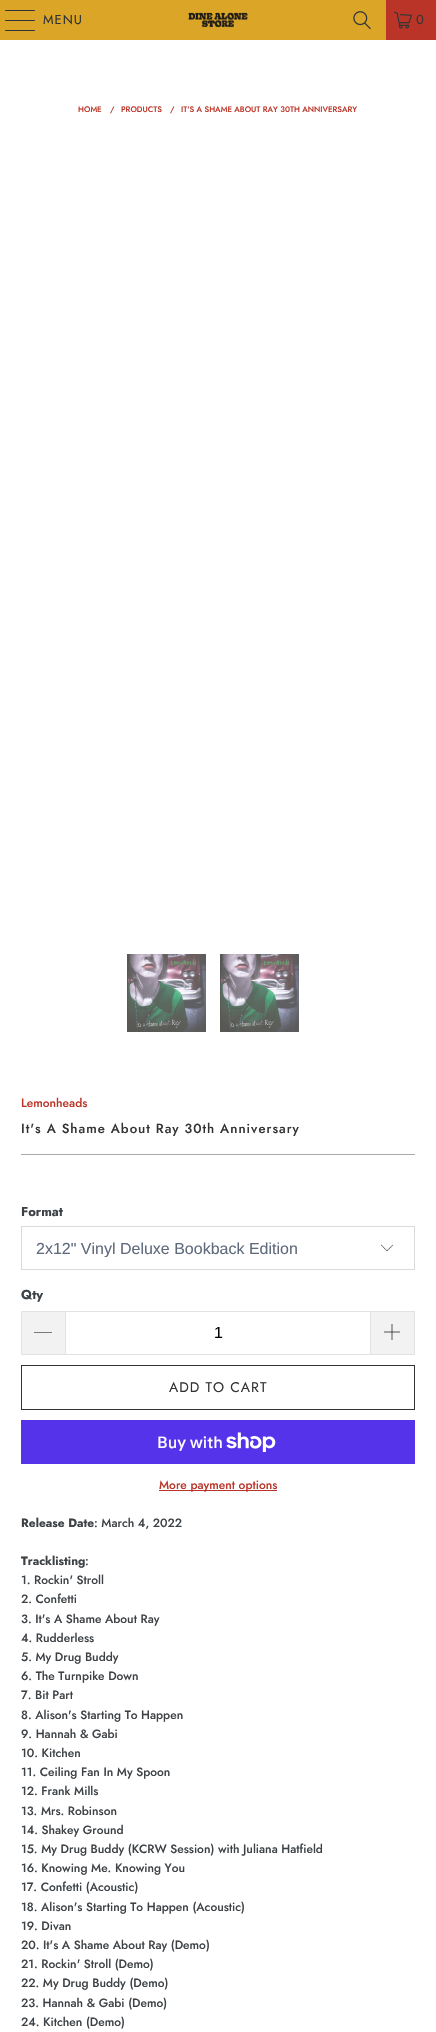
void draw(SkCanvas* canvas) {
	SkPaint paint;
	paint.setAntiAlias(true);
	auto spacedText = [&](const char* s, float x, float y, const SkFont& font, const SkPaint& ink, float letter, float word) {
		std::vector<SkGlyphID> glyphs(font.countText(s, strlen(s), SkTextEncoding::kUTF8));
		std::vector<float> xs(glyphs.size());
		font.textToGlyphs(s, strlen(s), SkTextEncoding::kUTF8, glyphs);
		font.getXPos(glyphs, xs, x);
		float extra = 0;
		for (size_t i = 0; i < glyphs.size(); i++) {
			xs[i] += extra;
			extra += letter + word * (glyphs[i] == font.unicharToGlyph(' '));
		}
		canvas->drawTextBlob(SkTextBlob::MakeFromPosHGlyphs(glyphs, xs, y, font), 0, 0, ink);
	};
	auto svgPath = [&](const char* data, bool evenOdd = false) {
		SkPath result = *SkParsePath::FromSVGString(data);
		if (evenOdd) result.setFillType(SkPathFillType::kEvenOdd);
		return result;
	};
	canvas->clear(0xffffffff);
	paint.setColor(0xffdba628);
	canvas->drawRect(SkRect::MakeXYWH(0, 0, 386, 40), paint);
	paint.setColor(0xff313436);
	canvas->drawRoundRect(SkRect::MakeXYWH(5, 10, 30, 1), 0.5, 0.5, paint);
	canvas->drawRoundRect(SkRect::MakeXYWH(5, 20, 30, 1), 0.5, 0.5, paint);
	canvas->drawRoundRect(SkRect::MakeXYWH(5, 30, 30, 1), 0.5, 0.5, paint);
	SkFont f1(fontMgr->matchFamilyStyle("Jost", SkFontStyle::Normal()), 13);
	f1.setSubpixel(true);
	paint.setColor(0xff333333);
	spacedText("MENU", 43, 24, f1, paint, 1, 0);
	canvas->drawImageRect(SkImages::DeferredFromEncodedData(SkData::MakeFromFileName("img1.png")), SkRect::MakeXYWH(188, 12, 60, 16), SkSamplingOptions());
	canvas->drawImageRect(SkImages::DeferredFromEncodedData(SkData::MakeFromFileName("img2.png")), SkRect::MakeXYWH(353, 11, 18, 19), SkSamplingOptions());
	paint.setColor(0xffbb3428);
	canvas->drawRect(SkRect::MakeXYWH(386, 0, 50, 40), paint);
	canvas->drawImageRect(SkImages::DeferredFromEncodedData(SkData::MakeFromFileName("img3.png")), SkRect::MakeXYWH(394, 11, 18, 18), SkSamplingOptions());
	paint.setColor(0xff333333);
	spacedText("0", 416, 24, f1, paint, 1, 0);
	SkFont f2(fontMgr->matchFamilyStyle("Jost", SkFontStyle(500, SkFontStyle::kNormal_Width, SkFontStyle::kUpright_Slant)), 8);
	f2.setSubpixel(true);
	paint.setColor(0xffbb3428);
	canvas->drawString("HOME", 78, 112, f2, paint);
	canvas->drawString("/", 110, 112, f2, paint);
	canvas->drawString("PRODUCTS", 121, 112, f2, paint);
	canvas->drawString("/", 170, 112, f2, paint);
	canvas->drawString("IT'S A SHAME ABOUT RAY 30TH ANNIVERSARY", 181, 112, f2, paint);
	canvas->drawImageRect(SkImages::DeferredFromEncodedData(SkData::MakeFromFileName("img4.png")), SkRect::MakeXYWH(127, 954, 79, 78), SkSamplingOptions());
	canvas->drawImageRect(SkImages::DeferredFromEncodedData(SkData::MakeFromFileName("img4.png")), SkRect::MakeXYWH(220, 954, 79, 78), SkSamplingOptions());
	SkFont f3(fontMgr->matchFamilyStyle("Jost", SkFontStyle(500, SkFontStyle::kNormal_Width, SkFontStyle::kUpright_Slant)), 12);
	f3.setSubpixel(true);
	canvas->drawString("Lemonheads", 21, 1107, f3, paint);
	SkFont f4(fontMgr->matchFamilyStyle("Jost", SkFontStyle(500, SkFontStyle::kNormal_Width, SkFontStyle::kUpright_Slant)), 13.2);
	f4.setSubpixel(true);
	paint.setColor(0xff333333);
	spacedText("It's A Shame About Ray 30th Anniversary", 21, 1133, f4, paint, 1, 0);
	paint.setColor(0xffaaaaaa);
	canvas->drawRect(SkRect::MakeXYWH(21, 1154, 394, 1), paint);
	SkFont f5(fontMgr->matchFamilyStyle("Jost", SkFontStyle::Bold()), 13);
	f5.setSubpixel(true);
	paint.setColor(0xff3d4246);
	canvas->drawString("Format", 21, 1216, f5, paint);
	canvas->drawImageRect(SkImages::DeferredFromEncodedData(SkData::MakeFromFileName("img5.png")), SkRect::MakeXYWH(381, 1244, 12, 8), SkSamplingOptions());
	paint.setStroke(true);
	paint.setStrokeWidth(1);
	paint.setColor(0xffd9dbdc);
	canvas->drawRect(SkRect::MakeXYWH(21.5, 1226.5, 393, 43), paint);
	canvas->save();
	canvas->clipRect(SkRect::MakeXYWH(36, 1240, 364, 17));
	SkFont f6(fontMgr->matchFamilyStyle("Liberation Sans", SkFontStyle::Normal()), 16);
	f6.setSubpixel(true);
	paint.setStroke(false);
	paint.setColor(0xff5f6a7d);
	canvas->drawString("2x12\" Vinyl Deluxe Bookback Edition", 36, 1254, f6, paint);
	canvas->restore();
	paint.setColor(0xff3d4246);
	canvas->drawString("Qty", 21, 1299, f5, paint);
	paint.setColor(0xfff2f2f2);
	canvas->drawRect(SkRect::MakeXYWH(22, 1312, 43, 42), paint);
	paint.setColor(0xffe2e2e2);
	canvas->drawRect(SkRect::MakeXYWH(21, 1311, 44, 1), paint);
	canvas->drawRect(SkRect::MakeXYWH(21, 1354, 44, 1), paint);
	canvas->drawRect(SkRect::MakeXYWH(21, 1311, 1, 44), paint);
	paint.setColor(0xff000000);
	canvas->drawPath(svgPath("M34 1332H52V1332.5H34Z"), paint);
	paint.setStroke(true);
	paint.setColor(0xffe2e2e2);
	canvas->drawRect(SkRect::MakeXYWH(65.5, 1311.5, 305, 43), paint);
	paint.setStroke(false);
	paint.setColor(0xff000000);
	canvas->drawString("1", 214, 1338, f6, paint);
	paint.setColor(0xfff2f2f2);
	canvas->drawRect(SkRect::MakeXYWH(371, 1312, 43, 42), paint);
	paint.setColor(0xffe2e2e2);
	canvas->drawRect(SkRect::MakeXYWH(371, 1311, 44, 1), paint);
	canvas->drawRect(SkRect::MakeXYWH(414, 1311, 1, 44), paint);
	canvas->drawRect(SkRect::MakeXYWH(371, 1354, 44, 1), paint);
	canvas->drawImageRect(SkImages::DeferredFromEncodedData(SkData::MakeFromFileName("img6.png")), SkRect::MakeXYWH(384, 1324, 16, 16), SkSamplingOptions());
	paint.setStroke(true);
	paint.setColor(0xff333333);
	canvas->drawRect(SkRect::MakeXYWH(21.5, 1365.5, 393, 44), paint);
	SkFont f7(fontMgr->matchFamilyStyle("Jost", SkFontStyle::Normal()), 14);
	f7.setSubpixel(true);
	paint.setStroke(false);
	spacedText("ADD TO CART", 169, 1392, f7, paint, 1, 0);
	paint.setColor(0xff5433eb);
	canvas->drawRect(SkRect::MakeXYWH(21, 1420, 394, 44), paint);
	SkFont f8(fontMgr->matchFamilyStyle("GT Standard", SkFontStyle(500, SkFontStyle::kNormal_Width, SkFontStyle::kUpright_Slant)), 16);
	f8.setSubpixel(true);
	paint.setColor(0xffffffff);
	canvas->drawString("Buy with", 157, 1448, f8, paint);
	canvas->drawImageRect(SkImages::DeferredFromEncodedData(SkData::MakeFromFileName("img7.png")), SkRect::MakeXYWH(226, 1432, 50, 20), SkSamplingOptions());
	paint.setColor(0xffbb3428);
	canvas->drawRect(SkRect::MakeXYWH(159, 1490, 118, 1), paint);
	canvas->drawString("More payment options", 159, 1489, f3, paint);
	SkFont f9(fontMgr->matchFamilyStyle("Jost", SkFontStyle::Bold()), 12);
	f9.setSubpixel(true);
	paint.setColor(0xff3d4246);
	canvas->drawString("Release Date", 21, 1527, f9, paint);
	canvas->drawString(": March 4, 2022", 94, 1527, f3, paint);
	canvas->drawString("Tracklisting", 21, 1565, f9, paint);
	canvas->drawString(":", 85, 1565, f3, paint);
	canvas->drawString("1. Rockin' Stroll", 21, 1584, f3, paint);
	canvas->drawString("2. Confetti", 21, 1603, f3, paint);
	canvas->drawString("3. It's A Shame About Ray", 21, 1623, f3, paint);
	canvas->drawString("4. Rudderless", 21, 1642, f3, paint);
	canvas->drawString("5. My Drug Buddy", 21, 1661, f3, paint);
	canvas->drawString("6. The Turnpike Down", 21, 1680, f3, paint);
	canvas->drawString("7. Bit Part", 21, 1699, f3, paint);
	canvas->drawString("8. Alison's Starting To Happen", 21, 1719, f3, paint);
	canvas->drawString("9. Hannah & Gabi", 21, 1738, f3, paint);
	canvas->drawString("10. Kitchen", 21, 1757, f3, paint);
	canvas->drawString("11. Ceiling Fan In My Spoon", 21, 1776, f3, paint);
	canvas->drawString("12. Frank Mills", 21, 1795, f3, paint);
	canvas->drawString("13. Mrs. Robinson", 21, 1815, f3, paint);
	canvas->drawString("14. Shakey Ground", 21, 1834, f3, paint);
	canvas->drawString("15. My Drug Buddy (KCRW Session) with Juliana Hatfield", 21, 1853, f3, paint);
	canvas->drawString("16. Knowing Me. Knowing You", 21, 1872, f3, paint);
	canvas->drawString("17. Confetti (Acoustic)", 21, 1891, f3, paint);
	canvas->drawString("18. Alison's Starting To Happen (Acoustic)", 21, 1911, f3, paint);
	canvas->drawString("19. Divan", 21, 1930, f3, paint);
	canvas->drawString("20. It's A Shame About Ray (Demo)", 21, 1949, f3, paint);
	canvas->drawString("21. Rockin' Stroll (Demo)", 21, 1968, f3, paint);
	canvas->drawString("22. My Drug Buddy (Demo)", 21, 1987, f3, paint);
	canvas->drawString("23. Hannah & Gabi (Demo)", 21, 2007, f3, paint);
	canvas->drawString("24. Kitchen (Demo)", 21, 2026, f3, paint);
}
